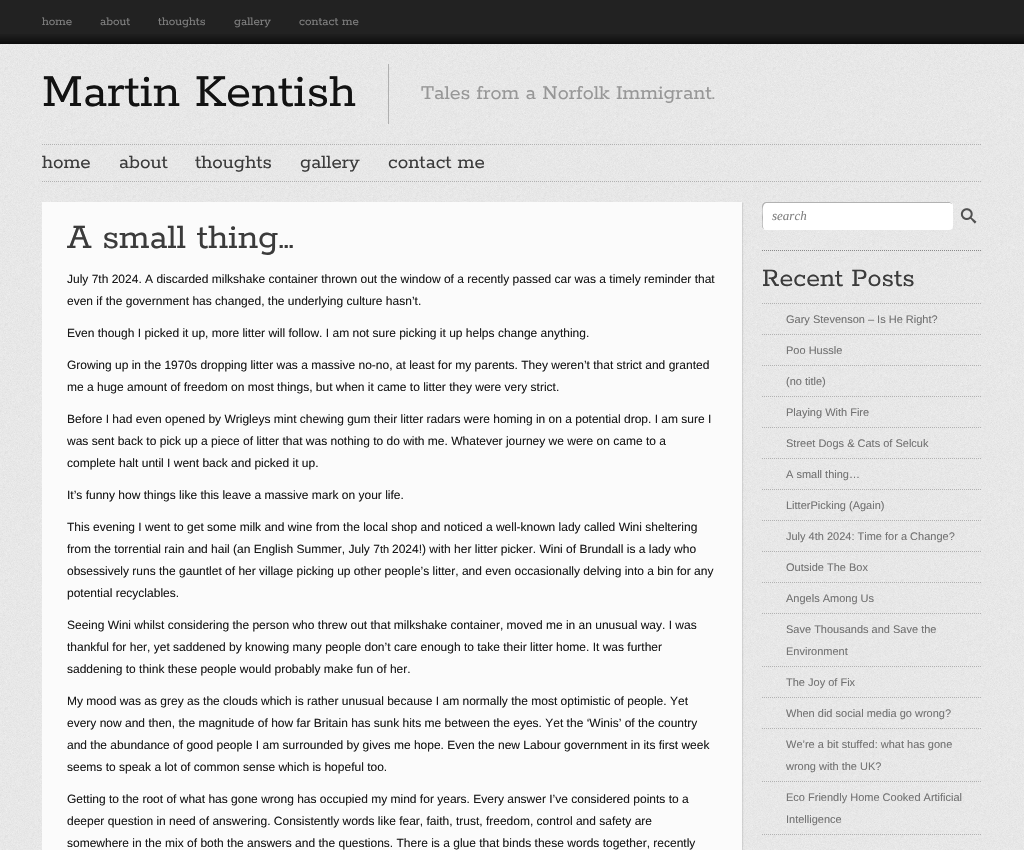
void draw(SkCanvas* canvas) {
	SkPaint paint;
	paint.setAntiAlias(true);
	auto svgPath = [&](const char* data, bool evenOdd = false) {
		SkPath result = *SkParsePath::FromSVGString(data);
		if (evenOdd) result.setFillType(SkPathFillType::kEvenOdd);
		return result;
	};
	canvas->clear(0xff222222);
	canvas->drawImageRect(SkImages::DeferredFromEncodedData(SkData::MakeFromFileName("img1.png")), SkRect::MakeXYWH(0, 34, 1024, 10), SkSamplingOptions());
	SkFont f1(fontMgr->matchFamilyStyle("Rokkitt", SkFontStyle::Normal()), 13);
	f1.setSubpixel(true);
	paint.setColor(0xff808080);
	canvas->drawString("home", 42, 25, f1, paint);
	canvas->drawString("about", 100, 25, f1, paint);
	canvas->drawString("thoughts", 158, 25, f1, paint);
	canvas->drawString("gallery", 234, 25, f1, paint);
	canvas->drawString("contact me", 299, 25, f1, paint);
	canvas->drawImageRect(SkImages::DeferredFromEncodedData(SkData::MakeFromFileName("img2.png")), SkRect::MakeXYWH(0, 44, 1024, 806), SkSamplingOptions());
	SkFont f2(fontMgr->matchFamilyStyle("Rokkitt", SkFontStyle::Normal()), 51);
	f2.setSubpixel(true);
	paint.setColor(0xff121212);
	canvas->drawString("Martin Kentish", 42, 106, f2, paint);
	paint.setColor(0xffafafaf);
	canvas->drawRect(SkRect::MakeXYWH(388, 64, 1, 60), paint);
	SkFont f3(fontMgr->matchFamilyStyle("Rokkitt", SkFontStyle::Normal()), 22);
	f3.setSubpixel(true);
	paint.setColor(0xff979797);
	canvas->drawString("Tales from a Norfolk Immigrant.", 421, 99, f3, paint);
	paint.setStroke(true);
	paint.setStrokeWidth(1);
	paint.setColor(0xffb2b2b2);
	paint.setPathEffect(SkDashPathEffect::Make({{1, 1}}, 0));
	canvas->drawPath(svgPath("M42 144.5H982"), paint);
	paint.setPathEffect(nullptr);
	paint.setPathEffect(SkDashPathEffect::Make({{1, 1}}, 0));
	canvas->drawPath(svgPath("M42 181.5H982"), paint);
	paint.setPathEffect(nullptr);
	SkFont f4(fontMgr->matchFamilyStyle("Rokkitt", SkFontStyle::Normal()), 21);
	f4.setSubpixel(true);
	paint.setStroke(false);
	paint.setColor(0xff3b3b3b);
	canvas->drawString("home", 42, 168, f4, paint);
	canvas->drawString("about", 119, 168, f4, paint);
	canvas->drawString("thoughts", 195, 168, f4, paint);
	canvas->drawString("gallery", 300, 168, f4, paint);
	canvas->drawString("contact me", 388, 168, f4, paint);
	paint.setColor(0x1a000000);
	paint.setMaskFilter(SkMaskFilter::MakeBlur(kNormal_SkBlurStyle, 0.5));
	canvas->drawRect(SkRect::MakeXYWH(43, 203, 700, 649), paint);
	paint.setMaskFilter(nullptr);
	paint.setColor(0xfffbfbfb);
	canvas->drawRect(SkRect::MakeXYWH(42, 202, 700, 648), paint);
	SkFont f5(fontMgr->matchFamilyStyle("Rokkitt", SkFontStyle::Normal()), 38);
	f5.setSubpixel(true);
	paint.setColor(0xff3b3b3b);
	canvas->drawString("A small thing…", 67, 248, f5, paint);
	SkFont f6(fontMgr->matchFamilyStyle("Liberation Sans", SkFontStyle::Normal()), 12);
	f6.setSubpixel(true);
	paint.setColor(0xff191919);
	canvas->drawString("July 7th 2024. A discarded milkshake container thrown out the window of a recently passed car was a timely reminder that", 67, 283, f6, paint);
	canvas->drawString("even if the government has changed, the underlying culture hasn’t.", 67, 305, f6, paint);
	canvas->drawString("Even though I picked it up, more litter will follow. I am not sure picking it up helps change anything.", 67, 337, f6, paint);
	canvas->drawString("Growing up in the 1970s dropping litter was a massive no-no, at least for my parents. They weren’t that strict and granted", 67, 369, f6, paint);
	canvas->drawString("me a huge amount of freedom on most things, but when it came to litter they were very strict.", 67, 391, f6, paint);
	canvas->drawString("Before I had even opened by Wrigleys mint chewing gum their litter radars were homing in on a potential drop. I am sure I", 67, 423, f6, paint);
	canvas->drawString("was sent back to pick up a piece of litter that was nothing to do with me. Whatever journey we were on came to a", 67, 445, f6, paint);
	canvas->drawString("complete halt until I went back and picked it up.", 67, 467, f6, paint);
	canvas->drawString("It’s funny how things like this leave a massive mark on your life.", 67, 499, f6, paint);
	canvas->drawString("This evening I went to get some milk and wine from the local shop and noticed a well-known lady called Wini sheltering", 67, 531, f6, paint);
	canvas->drawString("from the torrential rain and hail (an English Summer, July 7", 67, 553, f6, paint);
	SkFont f7(fontMgr->matchFamilyStyle("Liberation Sans", SkFontStyle::Normal()), 11);
	f7.setSubpixel(true);
	canvas->drawString("th", 380, 553, f7, paint);
	canvas->drawString("2024!) with her litter picker. Wini of Brundall is a lady who", 392, 553, f6, paint);
	canvas->drawString("obsessively runs the gauntlet of her village picking up other people’s litter, and even occasionally delving into a bin for any", 67, 575, f6, paint);
	canvas->drawString("potential recyclables.", 67, 597, f6, paint);
	canvas->drawString("Seeing Wini whilst considering the person who threw out that milkshake container, moved me in an unusual way. I was", 67, 629, f6, paint);
	canvas->drawString("thankful for her, yet saddened by knowing many people don’t care enough to take their litter home. It was further", 67, 651, f6, paint);
	canvas->drawString("saddening to think these people would probably make fun of her.", 67, 673, f6, paint);
	canvas->drawString("My mood was as grey as the clouds which is rather unusual because I am normally the most optimistic of people. Yet", 67, 705, f6, paint);
	canvas->drawString("every now and then, the magnitude of how far Britain has sunk hits me between the eyes. Yet the ‘Winis’ of the country", 67, 727, f6, paint);
	canvas->drawString("and the abundance of good people I am surrounded by gives me hope. Even the new Labour government in its first week", 67, 749, f6, paint);
	canvas->drawString("seems to speak a lot of common sense which is hopeful too.", 67, 771, f6, paint);
	canvas->drawString("Getting to the root of what has gone wrong has occupied my mind for years. Every answer I’ve considered points to a", 67, 803, f6, paint);
	canvas->drawString("deeper question in need of answering. Consistently words like fear, faith, trust, freedom, control and safety are", 67, 825, f6, paint);
	canvas->drawString("somewhere in the mix of both the answers and the questions. There is a glue that binds these words together, recently", 67, 847, f6, paint);
	paint.setColor(0xffffffff);
	canvas->drawRoundRect(SkRect::MakeXYWH(762, 202, 191, 28), 4, 4, paint);
	paint.setColor(0x4d000000);
	canvas->drawPath(svgPath("M767 203H950L952 204C952 203 950 202 949 202H766C764 202 762 204 762 206V226C762 227 763 229 764 229C762 227 763 220 763 217C763 214 761 203 767 203Z"), paint);
	SkFont f8(fontMgr->matchFamilyStyle("Liberation Serif", SkFontStyle::Italic()), 13);
	f8.setSubpixel(true);
	paint.setColor(0xff808080);
	canvas->drawString("search", 772, 220, f8, paint);
	canvas->drawImageRect(SkImages::DeferredFromEncodedData(SkData::MakeFromFileName("img3.png")), SkRect::MakeXYWH(960, 208, 17, 16), SkSamplingOptions());
	paint.setStroke(true);
	paint.setColor(0xff8a8a8a);
	paint.setPathEffect(SkDashPathEffect::Make({{1, 1}}, 0));
	canvas->drawPath(svgPath("M762 250.5H982"), paint);
	paint.setPathEffect(nullptr);
	SkFont f9(fontMgr->matchFamilyStyle("Rokkitt", SkFontStyle::Normal()), 28);
	f9.setSubpixel(true);
	paint.setStroke(false);
	paint.setColor(0xff3b3b3b);
	canvas->drawString("Recent Posts", 762, 286, f9, paint);
	paint.setStroke(true);
	paint.setColor(0xffb2b2b2);
	paint.setPathEffect(SkDashPathEffect::Make({{1, 1}}, 0));
	canvas->drawPath(svgPath("M762 303.5H982"), paint);
	paint.setPathEffect(nullptr);
	paint.setStroke(false);
	paint.setColor(0xff727272);
	canvas->drawString("Gary Stevenson – Is He Right?", 786, 323, f7, paint);
	paint.setStroke(true);
	paint.setColor(0xffb2b2b2);
	paint.setPathEffect(SkDashPathEffect::Make({{1, 1}}, 0));
	canvas->drawPath(svgPath("M762 334.5H982"), paint);
	paint.setPathEffect(nullptr);
	paint.setStroke(false);
	paint.setColor(0xff727272);
	canvas->drawString("Poo Hussle", 786, 354, f7, paint);
	paint.setStroke(true);
	paint.setColor(0xffb2b2b2);
	paint.setPathEffect(SkDashPathEffect::Make({{1, 1}}, 0));
	canvas->drawPath(svgPath("M762 365.5H982"), paint);
	paint.setPathEffect(nullptr);
	paint.setStroke(false);
	paint.setColor(0xff727272);
	canvas->drawString("(no title)", 786, 385, f7, paint);
	paint.setStroke(true);
	paint.setColor(0xffb2b2b2);
	paint.setPathEffect(SkDashPathEffect::Make({{1, 1}}, 0));
	canvas->drawPath(svgPath("M762 396.5H982"), paint);
	paint.setPathEffect(nullptr);
	paint.setStroke(false);
	paint.setColor(0xff727272);
	canvas->drawString("Playing With Fire", 786, 416, f7, paint);
	paint.setStroke(true);
	paint.setColor(0xffb2b2b2);
	paint.setPathEffect(SkDashPathEffect::Make({{1, 1}}, 0));
	canvas->drawPath(svgPath("M762 427.5H982"), paint);
	paint.setPathEffect(nullptr);
	paint.setStroke(false);
	paint.setColor(0xff727272);
	canvas->drawString("Street Dogs & Cats of Selcuk", 786, 447, f7, paint);
	paint.setStroke(true);
	paint.setColor(0xffb2b2b2);
	paint.setPathEffect(SkDashPathEffect::Make({{1, 1}}, 0));
	canvas->drawPath(svgPath("M762 458.5H982"), paint);
	paint.setPathEffect(nullptr);
	paint.setStroke(false);
	paint.setColor(0xff727272);
	canvas->drawString("A small thing…", 786, 478, f7, paint);
	paint.setStroke(true);
	paint.setColor(0xffb2b2b2);
	paint.setPathEffect(SkDashPathEffect::Make({{1, 1}}, 0));
	canvas->drawPath(svgPath("M762 489.5H982"), paint);
	paint.setPathEffect(nullptr);
	paint.setStroke(false);
	paint.setColor(0xff727272);
	canvas->drawString("LitterPicking (Again)", 786, 509, f7, paint);
	paint.setStroke(true);
	paint.setColor(0xffb2b2b2);
	paint.setPathEffect(SkDashPathEffect::Make({{1, 1}}, 0));
	canvas->drawPath(svgPath("M762 520.5H982"), paint);
	paint.setPathEffect(nullptr);
	paint.setStroke(false);
	paint.setColor(0xff727272);
	canvas->drawString("July 4th 2024: Time for a Change?", 786, 540, f7, paint);
	paint.setStroke(true);
	paint.setColor(0xffb2b2b2);
	paint.setPathEffect(SkDashPathEffect::Make({{1, 1}}, 0));
	canvas->drawPath(svgPath("M762 551.5H982"), paint);
	paint.setPathEffect(nullptr);
	paint.setStroke(false);
	paint.setColor(0xff727272);
	canvas->drawString("Outside The Box", 786, 571, f7, paint);
	paint.setStroke(true);
	paint.setColor(0xffb2b2b2);
	paint.setPathEffect(SkDashPathEffect::Make({{1, 1}}, 0));
	canvas->drawPath(svgPath("M762 582.5H982"), paint);
	paint.setPathEffect(nullptr);
	paint.setStroke(false);
	paint.setColor(0xff727272);
	canvas->drawString("Angels Among Us", 786, 602, f7, paint);
	paint.setStroke(true);
	paint.setColor(0xffb2b2b2);
	paint.setPathEffect(SkDashPathEffect::Make({{1, 1}}, 0));
	canvas->drawPath(svgPath("M762 613.5H982"), paint);
	paint.setPathEffect(nullptr);
	paint.setStroke(false);
	paint.setColor(0xff727272);
	canvas->drawString("Save Thousands and Save the", 786, 633, f7, paint);
	canvas->drawString("Environment", 786, 655, f7, paint);
	paint.setStroke(true);
	paint.setColor(0xffb2b2b2);
	paint.setPathEffect(SkDashPathEffect::Make({{1, 1}}, 0));
	canvas->drawPath(svgPath("M762 666.5H982"), paint);
	paint.setPathEffect(nullptr);
	paint.setStroke(false);
	paint.setColor(0xff727272);
	canvas->drawString("The Joy of Fix", 786, 686, f7, paint);
	paint.setStroke(true);
	paint.setColor(0xffb2b2b2);
	paint.setPathEffect(SkDashPathEffect::Make({{1, 1}}, 0));
	canvas->drawPath(svgPath("M762 697.5H982"), paint);
	paint.setPathEffect(nullptr);
	paint.setStroke(false);
	paint.setColor(0xff727272);
	canvas->drawString("When did social media go wrong?", 786, 717, f7, paint);
	paint.setStroke(true);
	paint.setColor(0xffb2b2b2);
	paint.setPathEffect(SkDashPathEffect::Make({{1, 1}}, 0));
	canvas->drawPath(svgPath("M762 728.5H982"), paint);
	paint.setPathEffect(nullptr);
	paint.setStroke(false);
	paint.setColor(0xff727272);
	canvas->drawString("We’re a bit stuffed: what has gone", 786, 748, f7, paint);
	canvas->drawString("wrong with the UK?", 786, 770, f7, paint);
	paint.setStroke(true);
	paint.setColor(0xffb2b2b2);
	paint.setPathEffect(SkDashPathEffect::Make({{1, 1}}, 0));
	canvas->drawPath(svgPath("M762 781.5H982"), paint);
	paint.setPathEffect(nullptr);
	paint.setPathEffect(SkDashPathEffect::Make({{1, 1}}, 0));
	canvas->drawPath(svgPath("M762 834.5H982"), paint);
	paint.setPathEffect(nullptr);
	paint.setStroke(false);
	paint.setColor(0xff727272);
	canvas->drawString("Eco Friendly Home Cooked Artificial", 786, 801, f7, paint);
	canvas->drawString("Intelligence", 786, 823, f7, paint);
}
